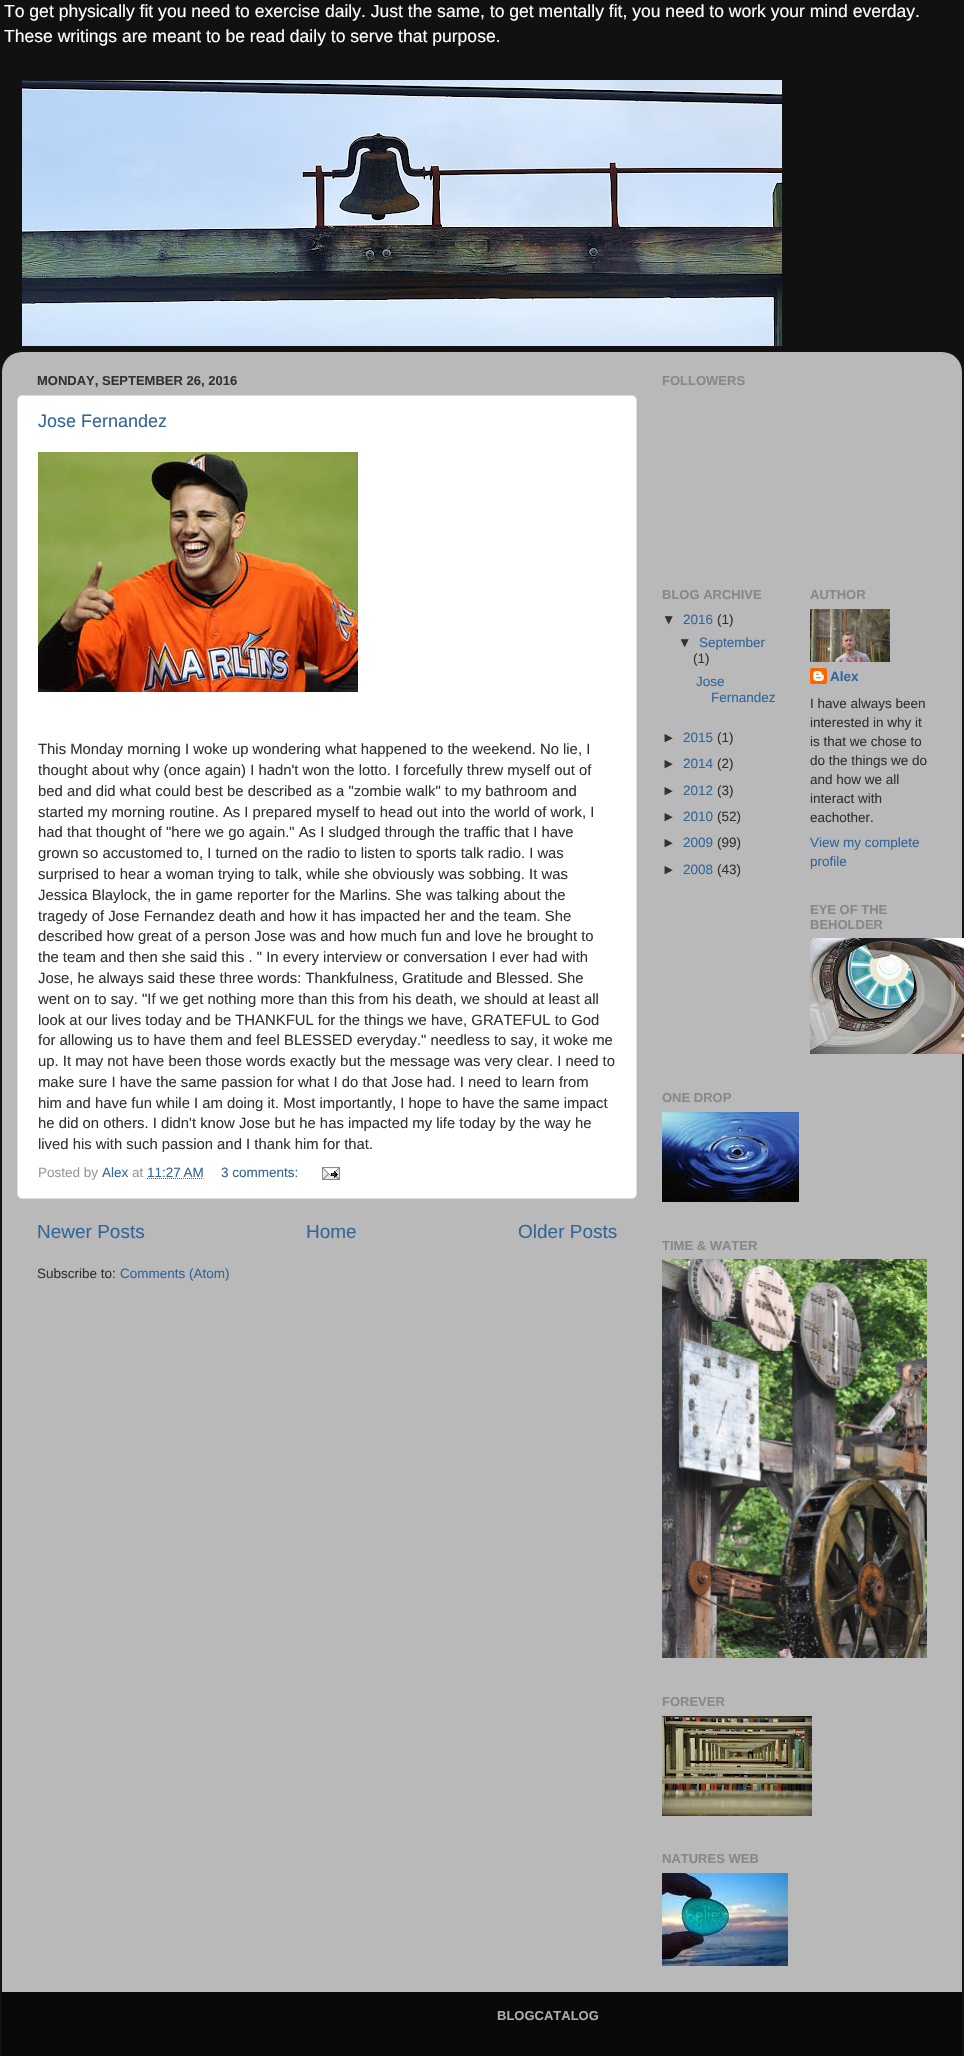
void draw(SkCanvas* canvas) {
	SkPaint paint;
	paint.setAntiAlias(true);
	auto svgPath = [&](const char* data, bool evenOdd = false) {
		SkPath result = *SkParsePath::FromSVGString(data);
		if (evenOdd) result.setFillType(SkPathFillType::kEvenOdd);
		return result;
	};
	canvas->clear(0xff111111);
	SkFont f1(fontMgr->matchFamilyStyle("Liberation Sans", SkFontStyle::Normal()), 17.55);
	f1.setSubpixel(true);
	paint.setColor(0xffffffff);
	canvas->drawString("To get physically fit you need to exercise daily. Just the same, to get mentally fit, you need to work your mind everday.", 4, 17, f1, paint);
	canvas->drawString("These writings are meant to be read daily to serve that purpose.", 4, 42, f1, paint);
	canvas->drawImageRect(SkImages::DeferredFromEncodedData(SkData::MakeFromFileName("img1.png")), SkRect::MakeXYWH(22, 80, 760, 266), SkSamplingOptions());
	canvas->drawImageRect(SkImages::DeferredFromEncodedData(SkData::MakeFromFileName("img2.png")), SkRect::MakeXYWH(2, 352, 960, 1640), SkSamplingOptions());
	SkFont f2(fontMgr->matchFamilyStyle("Liberation Sans", SkFontStyle::Bold()), 13);
	f2.setSubpixel(true);
	paint.setColor(0xff333333);
	canvas->drawString("MONDAY, SEPTEMBER 26, 2016", 37, 385, f2, paint);
	paint.setColor(0xffffffff);
	canvas->drawRoundRect(SkRect::MakeXYWH(17.5, 395.5, 619, 803), 4.5, 4.5, paint);
	paint.setStroke(true);
	paint.setStrokeWidth(1);
	paint.setColor(0xffdddddd);
	canvas->drawRoundRect(SkRect::MakeXYWH(17.5, 395.5, 619, 803), 4.5, 4.5, paint);
	SkFont f3(fontMgr->matchFamilyStyle("Liberation Sans", SkFontStyle::Normal()), 18);
	f3.setSubpixel(true);
	paint.setStroke(false);
	paint.setColor(0xff336699);
	canvas->drawString("Jose Fernandez", 38, 427, f3, paint);
	canvas->drawImageRect(SkImages::DeferredFromEncodedData(SkData::MakeFromFileName("img3.png")), SkRect::MakeXYWH(38, 452, 320, 240), SkSamplingOptions());
	SkFont f4(fontMgr->matchFamilyStyle("Liberation Sans", SkFontStyle::Normal()), 14.85);
	f4.setSubpixel(true);
	paint.setColor(0xff333333);
	canvas->drawString("This Monday morning I woke up wondering what happened to the weekend. No lie, I", 38, 754, f4, paint);
	canvas->drawString("thought about why (once again) I hadn't won the lotto. I forcefully threw myself out of", 38, 775, f4, paint);
	canvas->drawString("bed and did what could best be described as a \"zombie walk\" to my bathroom and", 38, 796, f4, paint);
	canvas->drawString("started my morning routine. As I prepared myself to head out into the world of work, I", 38, 817, f4, paint);
	canvas->drawString("had that thought of \"here we go again.\" As I sludged through the traffic that I have", 38, 837, f4, paint);
	canvas->drawString("grown so accustomed to, I turned on the radio to listen to sports talk radio. I was", 38, 858, f4, paint);
	canvas->drawString("surprised to hear a woman trying to talk, while she obviously was sobbing. It was", 38, 879, f4, paint);
	canvas->drawString("Jessica Blaylock, the in game reporter for the Marlins. She was talking about the", 38, 900, f4, paint);
	canvas->drawString("tragedy of Jose Fernandez death and how it has impacted her and the team. She", 38, 921, f4, paint);
	canvas->drawString("described how great of a person Jose was and how much fun and love he brought to", 38, 941, f4, paint);
	canvas->drawString("the team and then she said this . \" In every interview or conversation I ever had with", 38, 962, f4, paint);
	canvas->drawString("Jose, he always said these three words: Thankfulness, Gratitude and Blessed. She", 38, 983, f4, paint);
	canvas->drawString("went on to say. \"If we get nothing more than this from his death, we should at least all", 38, 1004, f4, paint);
	canvas->drawString("look at our lives today and be THANKFUL for the things we have, GRATEFUL to God", 38, 1025, f4, paint);
	canvas->drawString("for allowing us to have them and feel BLESSED everyday.\" needless to say, it woke me", 38, 1045, f4, paint);
	canvas->drawString("up. It may not have been those words exactly but the message was very clear. I need to", 38, 1066, f4, paint);
	canvas->drawString("make sure I have the same passion for what I do that Jose had. I need to learn from", 38, 1087, f4, paint);
	canvas->drawString("him and have fun while I am doing it. Most importantly, I hope to have the same impact", 38, 1108, f4, paint);
	canvas->drawString("he did on others. I didn't know Jose but he has impacted my life today by the way he", 38, 1128, f4, paint);
	canvas->drawString("lived his with such passion and I thank him for that.", 38, 1149, f4, paint);
	SkFont f5(fontMgr->matchFamilyStyle("Liberation Sans", SkFontStyle::Normal()), 13.5);
	f5.setSubpixel(true);
	paint.setColor(0xff999999);
	canvas->drawString("Posted by", 38, 1177, f5, paint);
	paint.setColor(0xff336699);
	canvas->drawString("Alex", 102, 1177, f5, paint);
	paint.setColor(0xff999999);
	canvas->drawString("at", 132, 1177, f5, paint);
	paint.setColor(0xff336699);
	canvas->drawString("11:27 AM", 147, 1177, f5, paint);
	paint.setStroke(true);
	paint.setPathEffect(SkDashPathEffect::Make({{1, 1}}, 0));
	canvas->drawPath(svgPath("M147 1178.5H203.5"), paint);
	paint.setPathEffect(nullptr);
	paint.setStroke(false);
	canvas->drawString("3 comments:", 221, 1177, f5, paint);
	canvas->drawImageRect(SkImages::DeferredFromEncodedData(SkData::MakeFromFileName("img4.png")), SkRect::MakeXYWH(322, 1167, 18, 13), SkSamplingOptions());
	SkFont f6(fontMgr->matchFamilyStyle("Liberation Sans", SkFontStyle::Normal()), 19);
	f6.setSubpixel(true);
	canvas->drawString("Newer Posts", 37, 1238, f6, paint);
	canvas->drawString("Home", 306, 1238, f6, paint);
	canvas->drawString("Older Posts", 518, 1238, f6, paint);
	paint.setColor(0xff333333);
	canvas->drawString("Subscribe to:", 37, 1278, f5, paint);
	paint.setColor(0xff336699);
	canvas->drawString("Comments (Atom)", 120, 1278, f5, paint);
	paint.setColor(0xff888888);
	canvas->drawString("FOLLOWERS", 662, 385, f2, paint);
	canvas->drawString("BLOG ARCHIVE", 662, 599, f2, paint);
	paint.setColor(0xff333333);
	canvas->drawString("▼", 662, 624, f5, paint);
	paint.setColor(0xff336699);
	canvas->drawString("2016", 683, 624, f5, paint);
	paint.setColor(0xff333333);
	canvas->drawString("(1)", 717, 624, f5, paint);
	canvas->drawString("▼", 678, 647, f5, paint);
	paint.setColor(0xff336699);
	canvas->drawString("September", 699, 647, f5, paint);
	paint.setColor(0xff333333);
	canvas->drawString("(1)", 693, 663, f5, paint);
	paint.setColor(0xff336699);
	canvas->drawString("Jose", 696, 686, f5, paint);
	canvas->drawString("Fernandez", 711, 702, f5, paint);
	paint.setColor(0xff333333);
	canvas->drawString("►", 662, 742, f5, paint);
	paint.setColor(0xff336699);
	canvas->drawString("2015", 683, 742, f5, paint);
	paint.setColor(0xff333333);
	canvas->drawString("(1)", 717, 742, f5, paint);
	canvas->drawString("►", 662, 768, f5, paint);
	paint.setColor(0xff336699);
	canvas->drawString("2014", 683, 768, f5, paint);
	paint.setColor(0xff333333);
	canvas->drawString("(2)", 717, 768, f5, paint);
	canvas->drawString("►", 662, 795, f5, paint);
	paint.setColor(0xff336699);
	canvas->drawString("2012", 683, 795, f5, paint);
	paint.setColor(0xff333333);
	canvas->drawString("(3)", 717, 795, f5, paint);
	canvas->drawString("►", 662, 821, f5, paint);
	paint.setColor(0xff336699);
	canvas->drawString("2010", 683, 821, f5, paint);
	paint.setColor(0xff333333);
	canvas->drawString("(52)", 717, 821, f5, paint);
	canvas->drawString("►", 662, 847, f5, paint);
	paint.setColor(0xff336699);
	canvas->drawString("2009", 683, 847, f5, paint);
	paint.setColor(0xff333333);
	canvas->drawString("(99)", 717, 847, f5, paint);
	canvas->drawString("►", 662, 874, f5, paint);
	paint.setColor(0xff336699);
	canvas->drawString("2008", 683, 874, f5, paint);
	paint.setColor(0xff333333);
	canvas->drawString("(43)", 717, 874, f5, paint);
	paint.setColor(0xff888888);
	canvas->drawString("AUTHOR", 810, 599, f2, paint);
	canvas->drawImageRect(SkImages::DeferredFromEncodedData(SkData::MakeFromFileName("img5.png")), SkRect::MakeXYWH(810, 609, 80, 53), SkSamplingOptions());
	canvas->drawImageRect(SkImages::DeferredFromEncodedData(SkData::MakeFromFileName("img6.png")), SkRect::MakeXYWH(810, 668, 17, 16), SkSamplingOptions());
	SkFont f7(fontMgr->matchFamilyStyle("Liberation Sans", SkFontStyle::Bold()), 13.5);
	f7.setSubpixel(true);
	paint.setColor(0xff336699);
	canvas->drawString("Alex", 830, 681, f7, paint);
	paint.setColor(0xff333333);
	canvas->drawString("I have always been", 810, 708, f5, paint);
	canvas->drawString("interested in why it", 810, 727, f5, paint);
	canvas->drawString("is that we chose to", 810, 746, f5, paint);
	canvas->drawString("do the things we do", 810, 765, f5, paint);
	canvas->drawString("and how we all", 810, 784, f5, paint);
	canvas->drawString("interact with", 810, 803, f5, paint);
	canvas->drawString("eachother.", 810, 822, f5, paint);
	paint.setColor(0xff336699);
	canvas->drawString("View my complete", 810, 847, f5, paint);
	canvas->drawString("profile", 810, 866, f5, paint);
	paint.setColor(0xff888888);
	canvas->drawString("EYE OF THE", 810, 914, f2, paint);
	canvas->drawString("BEHOLDER", 810, 929, f2, paint);
	canvas->drawImageRect(SkImages::DeferredFromEncodedData(SkData::MakeFromFileName("img7.png")), SkRect::MakeXYWH(810, 938, 154, 116), SkSamplingOptions());
	canvas->drawString("ONE DROP", 662, 1102, f2, paint);
	canvas->drawImageRect(SkImages::DeferredFromEncodedData(SkData::MakeFromFileName("img8.png")), SkRect::MakeXYWH(662, 1112, 137, 90), SkSamplingOptions());
	canvas->drawString("TIME & WATER", 662, 1250, f2, paint);
	canvas->drawImageRect(SkImages::DeferredFromEncodedData(SkData::MakeFromFileName("img9.png")), SkRect::MakeXYWH(662, 1259, 265, 399), SkSamplingOptions());
	canvas->drawString("FOREVER", 662, 1706, f2, paint);
	canvas->drawImageRect(SkImages::DeferredFromEncodedData(SkData::MakeFromFileName("img10.png")), SkRect::MakeXYWH(662, 1716, 150, 100), SkSamplingOptions());
	canvas->drawString("NATURES WEB", 662, 1863, f2, paint);
	canvas->drawImageRect(SkImages::DeferredFromEncodedData(SkData::MakeFromFileName("img11.png")), SkRect::MakeXYWH(662, 1873, 126, 93), SkSamplingOptions());
	paint.setColor(0xff080808);
	canvas->drawRect(SkRect::MakeXYWH(2, 1992, 960, 64), paint);
	paint.setColor(0xffaaaaaa);
	canvas->drawString("BLOGCATALOG", 497, 2020, f2, paint);
}
